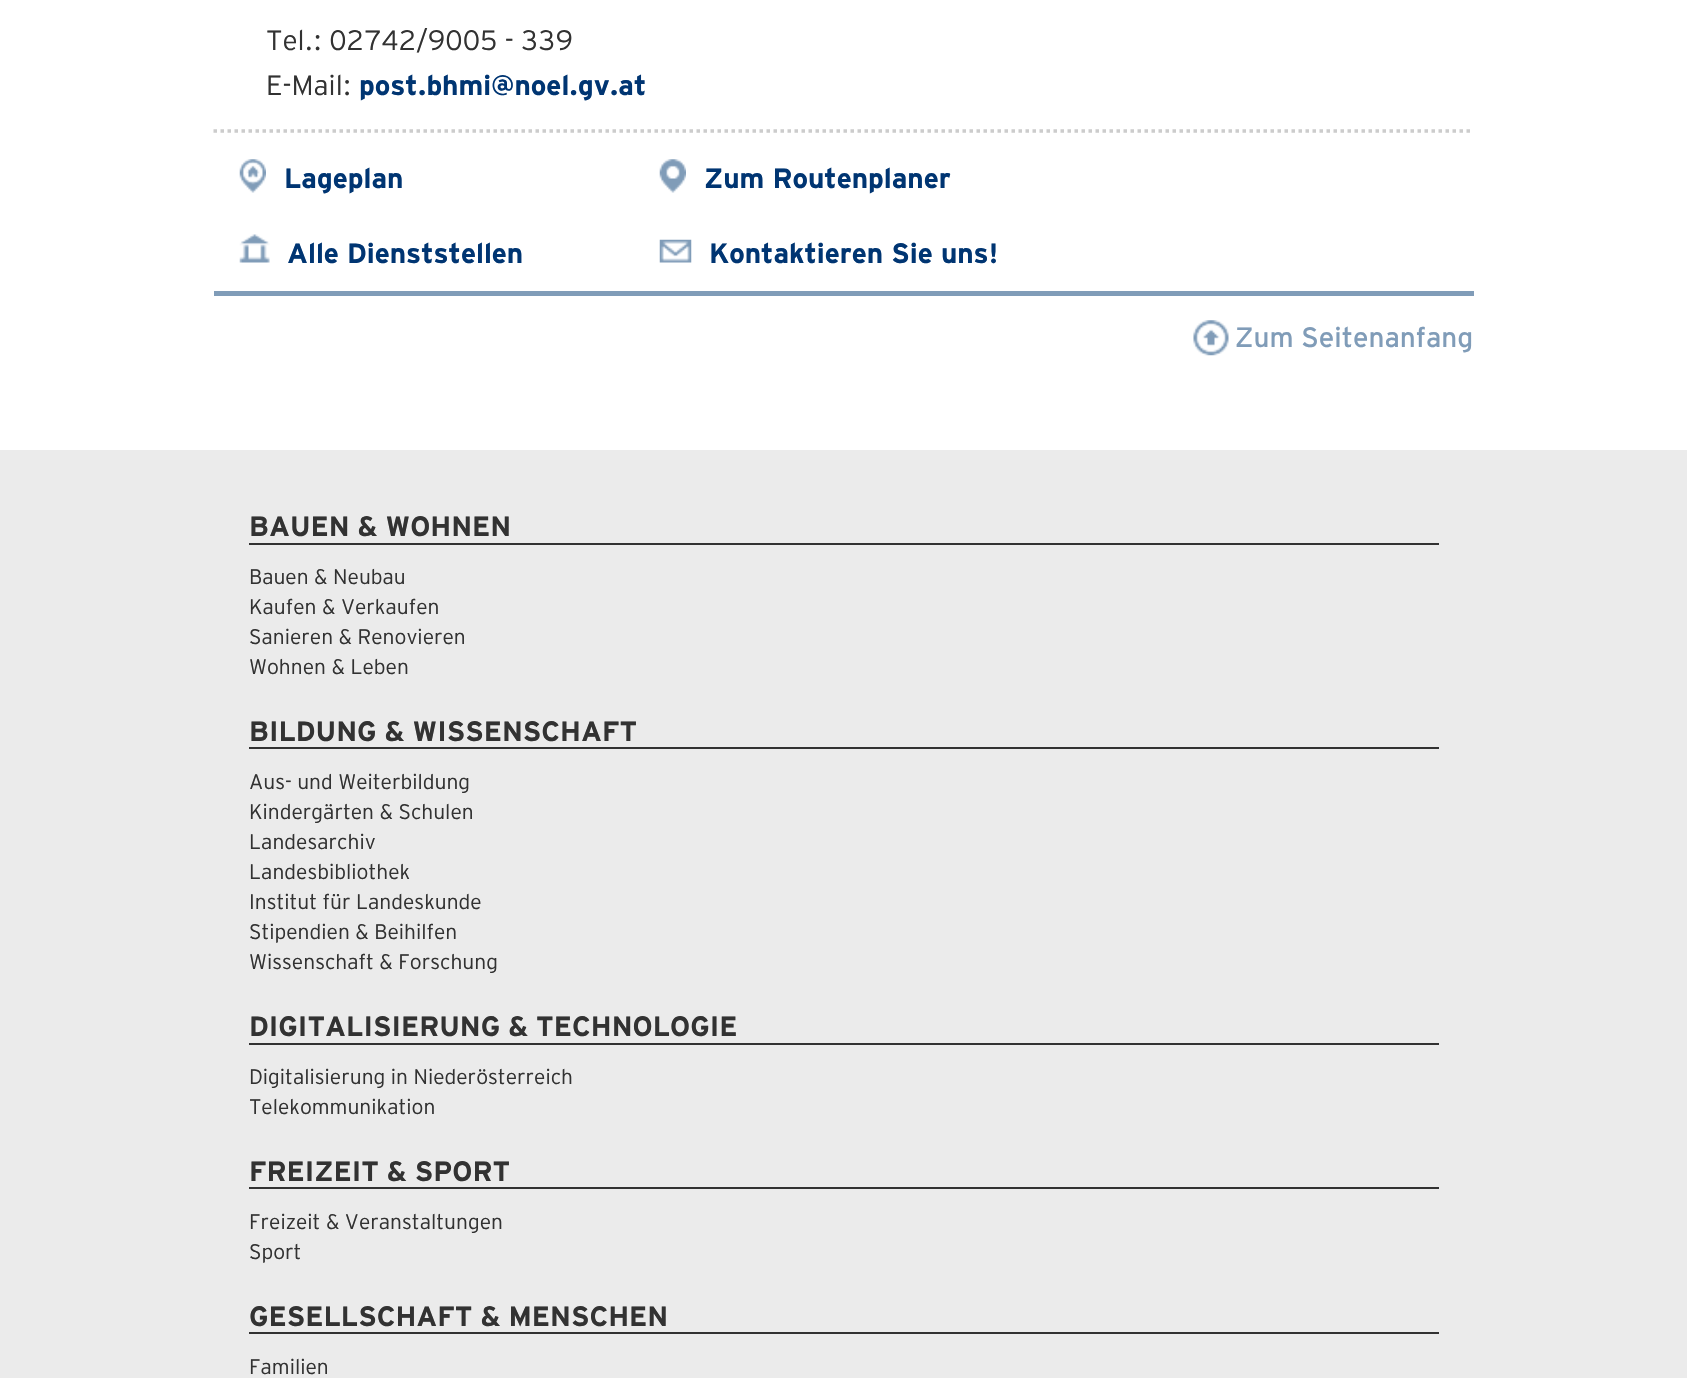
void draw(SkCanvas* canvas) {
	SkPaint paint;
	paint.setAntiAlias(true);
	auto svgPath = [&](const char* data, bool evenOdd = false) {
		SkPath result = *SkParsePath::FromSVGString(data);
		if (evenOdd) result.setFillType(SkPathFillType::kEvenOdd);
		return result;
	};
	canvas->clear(0xffffffff);
	SkFont f1(fontMgr->matchFamilyStyle("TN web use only", SkFontStyle(300, SkFontStyle::kNormal_Width, SkFontStyle::kUpright_Slant)), 28);
	f1.setSubpixel(true);
	paint.setColor(0xff323232);
	canvas->drawString("Tel.: 02742/9005 - 339", 266, 50, f1, paint);
	canvas->drawString("E-Mail:", 266, 95, f1, paint);
	SkFont f2(fontMgr->matchFamilyStyle("TN web use only", SkFontStyle::Bold()), 28);
	f2.setSubpixel(true);
	paint.setColor(0xff003572);
	canvas->drawString("post.bhmi@noel.gv.at", 359, 95, f2, paint);
	paint.setStroke(true);
	paint.setStrokeWidth(3.5);
	paint.setColor(0xffcccccc);
	paint.setPathEffect(SkDashPathEffect::Make({{3.5f, 3.5f}}, 0));
	canvas->drawPath(svgPath("M213.5 131H1473.5"), paint);
	paint.setPathEffect(nullptr);
	canvas->drawImageRect(SkImages::DeferredFromEncodedData(SkData::MakeFromFileName("img1.png")), SkRect::MakeXYWH(239, 159, 27, 34), SkSamplingOptions());
	paint.setStroke(false);
	paint.setColor(0xff003572);
	canvas->drawString("Lageplan", 284, 188, f2, paint);
	canvas->drawImageRect(SkImages::DeferredFromEncodedData(SkData::MakeFromFileName("img2.png")), SkRect::MakeXYWH(659, 159, 27, 34), SkSamplingOptions());
	canvas->drawString("Zum Routenplaner", 704, 188, f2, paint);
	canvas->drawImageRect(SkImages::DeferredFromEncodedData(SkData::MakeFromFileName("img3.png")), SkRect::MakeXYWH(239, 234, 31, 29), SkSamplingOptions());
	canvas->drawString("Alle Dienststellen", 287, 263, f2, paint);
	canvas->drawImageRect(SkImages::DeferredFromEncodedData(SkData::MakeFromFileName("img4.png")), SkRect::MakeXYWH(659, 239, 33, 24), SkSamplingOptions());
	canvas->drawString("Kontaktieren Sie uns!", 709, 263, f2, paint);
	paint.setColor(0xff809cb8);
	canvas->drawRect(SkRect::MakeXYWH(214, 291, 1260, 5), paint);
	canvas->drawImageRect(SkImages::DeferredFromEncodedData(SkData::MakeFromFileName("img5.png")), SkRect::MakeXYWH(1193, 320, 36, 36), SkSamplingOptions());
	SkFont f3(fontMgr->matchFamilyStyle("TN web use only", SkFontStyle::Normal()), 28);
	f3.setSubpixel(true);
	canvas->drawString("Zum Seitenanfang", 1235, 347, f3, paint);
	paint.setColor(0xffebebeb);
	canvas->drawRect(SkRect::MakeXYWH(0, 450, 1687, 928), paint);
	paint.setColor(0xff323232);
	canvas->drawRect(SkRect::MakeXYWH(249, 543, 1190, 2), paint);
	canvas->drawString("BAUEN & WOHNEN", 249, 536, f2, paint);
	SkFont f4(fontMgr->matchFamilyStyle("TN web use only", SkFontStyle(300, SkFontStyle::kNormal_Width, SkFontStyle::kUpright_Slant)), 21);
	f4.setSubpixel(true);
	canvas->drawString("Bauen & Neubau", 249, 584, f4, paint);
	canvas->drawString("Kaufen & Verkaufen", 249, 614, f4, paint);
	canvas->drawString("Sanieren & Renovieren", 249, 644, f4, paint);
	canvas->drawString("Wohnen & Leben", 249, 674, f4, paint);
	canvas->drawRect(SkRect::MakeXYWH(249, 747, 1190, 2), paint);
	canvas->drawString("BILDUNG & WISSENSCHAFT", 249, 741, f2, paint);
	canvas->drawString("Aus- und Weiterbildung", 249, 789, f4, paint);
	canvas->drawString("Kindergärten & Schulen", 249, 819, f4, paint);
	canvas->drawString("Landesarchiv", 249, 849, f4, paint);
	canvas->drawString("Landesbibliothek", 249, 879, f4, paint);
	canvas->drawString("Institut für Landeskunde", 249, 909, f4, paint);
	canvas->drawString("Stipendien & Beihilfen", 249, 939, f4, paint);
	canvas->drawString("Wissenschaft & Forschung", 249, 969, f4, paint);
	canvas->drawRect(SkRect::MakeXYWH(249, 1043, 1190, 2), paint);
	canvas->drawString("DIGITALISIERUNG & TECHNOLOGIE", 249, 1036, f2, paint);
	canvas->drawString("Digitalisierung in Niederösterreich", 249, 1084, f4, paint);
	canvas->drawString("Telekommunikation", 249, 1114, f4, paint);
	canvas->drawRect(SkRect::MakeXYWH(249, 1187, 1190, 2), paint);
	canvas->drawString("FREIZEIT & SPORT", 249, 1181, f2, paint);
	canvas->drawString("Freizeit & Veranstaltungen", 249, 1229, f4, paint);
	canvas->drawString("Sport", 249, 1259, f4, paint);
	canvas->drawRect(SkRect::MakeXYWH(249, 1332, 1190, 2), paint);
	canvas->drawString("GESELLSCHAFT & MENSCHEN", 249, 1326, f2, paint);
	canvas->drawString("Familien", 249, 1374, f4, paint);
}
